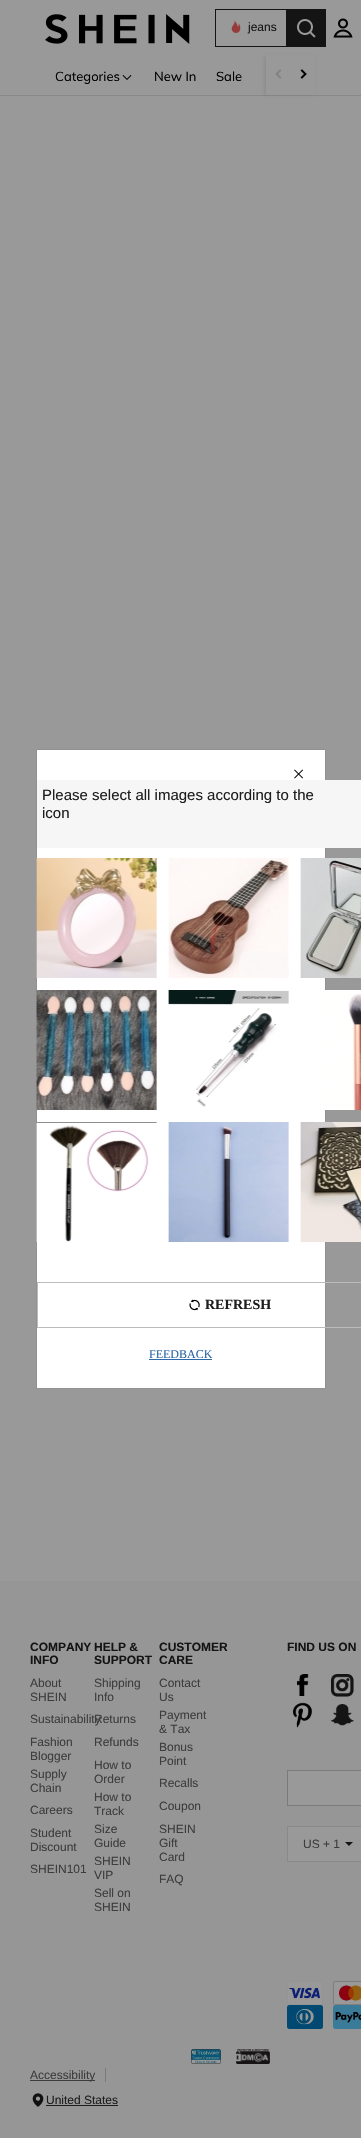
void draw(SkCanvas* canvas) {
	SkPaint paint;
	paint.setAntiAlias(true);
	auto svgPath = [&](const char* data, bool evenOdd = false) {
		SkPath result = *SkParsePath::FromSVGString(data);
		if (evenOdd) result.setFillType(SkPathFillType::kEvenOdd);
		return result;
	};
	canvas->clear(0xff999999);
	paint.setColor(0xff898989);
	canvas->drawRect(SkRect::MakeXYWH(0, 95, 361, 1), paint);
	paint.setColor(0x14000000);
	paint.setMaskFilter(SkMaskFilter::MakeBlur(kNormal_SkBlurStyle, 1.5));
	canvas->drawRect(SkRect::MakeXYWH(264, 56, 50, 39), paint);
	paint.setMaskFilter(nullptr);
	paint.setColor(0xff999999);
	canvas->drawRect(SkRect::MakeXYWH(264, 55, 50, 1), paint);
	canvas->drawImageRect(SkImages::DeferredFromEncodedData(SkData::MakeFromFileName("img1.png")), SkRect::MakeXYWH(45, 14, 145, 30), SkSamplingOptions());
	paint.setColor(0xff141414);
	canvas->drawRect(SkRect::MakeXYWH(215, 9, 71, 1), paint);
	canvas->drawRect(SkRect::MakeXYWH(215, 46, 71, 1), paint);
	canvas->drawRect(SkRect::MakeXYWH(215, 9, 1, 38), paint);
	canvas->drawImageRect(SkImages::DeferredFromEncodedData(SkData::MakeFromFileName("img2.png")), SkRect::MakeXYWH(231, 20, 10, 13), SkSamplingOptions());
	SkFont f1(fontMgr->matchFamilyStyle("Liberation Sans", SkFontStyle::Normal()), 12);
	f1.setSubpixel(true);
	canvas->drawString("jeans", 248, 31, f1, paint);
	canvas->drawRect(SkRect::MakeXYWH(286, 9, 40, 38), paint);
	canvas->drawImageRect(SkImages::DeferredFromEncodedData(SkData::MakeFromFileName("img3.png")), SkRect::MakeXYWH(297, 19, 19, 19), SkSamplingOptions());
	canvas->drawImageRect(SkImages::DeferredFromEncodedData(SkData::MakeFromFileName("img4.png")), SkRect::MakeXYWH(333, 18, 20, 20), SkSamplingOptions());
	SkFont f2(fontMgr->matchFamilyStyle("Muli", SkFontStyle::Normal()), 13);
	f2.setSubpixel(true);
	paint.setColor(0xff000000);
	canvas->drawString("Categories", 55, 81, f2, paint);
	canvas->drawImageRect(SkImages::DeferredFromEncodedData(SkData::MakeFromFileName("img5.png")), SkRect::MakeXYWH(122, 75, 10, 5), SkSamplingOptions());
	canvas->drawString("New In", 154, 81, f2, paint);
	canvas->drawString("Sale", 216, 81, f2, paint);
	paint.setColor(0xff999999);
	canvas->drawRect(SkRect::MakeXYWH(266, 56, 49, 39), paint);
	canvas->drawImageRect(SkImages::DeferredFromEncodedData(SkData::MakeFromFileName("img6.png")), SkRect::MakeXYWH(275, 69, 7, 10), SkSamplingOptions());
	canvas->drawImageRect(SkImages::DeferredFromEncodedData(SkData::MakeFromFileName("img7.png")), SkRect::MakeXYWH(300, 69, 7, 10), SkSamplingOptions());
	paint.setColor(0xff969696);
	canvas->drawRect(SkRect::MakeXYWH(0, 1581, 361, 557), paint);
	SkFont f3(fontMgr->matchFamilyStyle("Liberation Sans", SkFontStyle::Bold()), 12);
	f3.setSubpixel(true);
	paint.setColor(0xff141414);
	canvas->drawString("COMPANY", 30, 1651, f3, paint);
	canvas->drawString("INFO", 30, 1664, f3, paint);
	paint.setColor(0xff3d3d3d);
	canvas->drawString("About", 30, 1687, f1, paint);
	canvas->drawString("SHEIN", 30, 1701, f1, paint);
	canvas->drawString("Sustainability", 30, 1723, f1, paint);
	canvas->drawString("Fashion", 30, 1746, f1, paint);
	canvas->drawString("Blogger", 30, 1760, f1, paint);
	canvas->drawString("Supply", 30, 1778, f1, paint);
	canvas->drawString("Chain", 30, 1792, f1, paint);
	canvas->drawString("Careers", 30, 1814, f1, paint);
	canvas->drawString("Student", 30, 1837, f1, paint);
	canvas->drawString("Discount", 30, 1851, f1, paint);
	canvas->drawString("SHEIN101", 30, 1873, f1, paint);
	paint.setColor(0xff141414);
	canvas->drawString("HELP &", 94, 1651, f3, paint);
	canvas->drawString("SUPPORT", 94, 1664, f3, paint);
	paint.setColor(0xff3d3d3d);
	canvas->drawString("Shipping", 94, 1687, f1, paint);
	canvas->drawString("Info", 94, 1701, f1, paint);
	canvas->drawString("Returns", 94, 1723, f1, paint);
	canvas->drawString("Refunds", 94, 1746, f1, paint);
	canvas->drawString("How to", 94, 1769, f1, paint);
	canvas->drawString("Order", 94, 1783, f1, paint);
	canvas->drawString("How to", 94, 1801, f1, paint);
	canvas->drawString("Track", 94, 1815, f1, paint);
	canvas->drawString("Size", 94, 1833, f1, paint);
	canvas->drawString("Guide", 94, 1847, f1, paint);
	canvas->drawString("SHEIN", 94, 1865, f1, paint);
	canvas->drawString("VIP", 94, 1879, f1, paint);
	canvas->drawString("Sell on", 94, 1897, f1, paint);
	canvas->drawString("SHEIN", 94, 1911, f1, paint);
	paint.setColor(0xff141414);
	canvas->drawString("CUSTOMER", 159, 1651, f3, paint);
	canvas->drawString("CARE", 159, 1664, f3, paint);
	paint.setColor(0xff3d3d3d);
	canvas->drawString("Contact", 159, 1687, f1, paint);
	canvas->drawString("Us", 159, 1701, f1, paint);
	canvas->drawString("Payment", 159, 1719, f1, paint);
	canvas->drawString("& Tax", 159, 1733, f1, paint);
	canvas->drawString("Bonus", 159, 1751, f1, paint);
	canvas->drawString("Point", 159, 1765, f1, paint);
	canvas->drawString("Recalls", 159, 1787, f1, paint);
	canvas->drawString("Coupon", 159, 1810, f1, paint);
	canvas->drawString("SHEIN", 159, 1833, f1, paint);
	canvas->drawString("Gift", 159, 1847, f1, paint);
	canvas->drawString("Card", 159, 1861, f1, paint);
	canvas->drawString("FAQ", 159, 1883, f1, paint);
	paint.setColor(0xff141414);
	canvas->drawString("FIND US ON", 287, 1651, f3, paint);
	canvas->drawImageRect(SkImages::DeferredFromEncodedData(SkData::MakeFromFileName("img8.png")), SkRect::MakeXYWH(297, 1674, 12, 22), SkSamplingOptions());
	canvas->drawImageRect(SkImages::DeferredFromEncodedData(SkData::MakeFromFileName("img9.png")), SkRect::MakeXYWH(331, 1674, 23, 23), SkSamplingOptions());
	canvas->drawImageRect(SkImages::DeferredFromEncodedData(SkData::MakeFromFileName("img10.png")), SkRect::MakeXYWH(293, 1702, 20, 26), SkSamplingOptions());
	canvas->drawImageRect(SkImages::DeferredFromEncodedData(SkData::MakeFromFileName("img11.png")), SkRect::MakeXYWH(331, 1704, 23, 22), SkSamplingOptions());
	paint.setColor(0xff999999);
	canvas->drawRect(SkRect::MakeXYWH(287.5, 1770.5, 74, 35), paint);
	paint.setStroke(true);
	paint.setStrokeWidth(1);
	paint.setColor(0xff7a7a7a);
	canvas->drawRect(SkRect::MakeXYWH(287.5, 1770.5, 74, 35), paint);
	paint.setStroke(false);
	paint.setColor(0xff999999);
	canvas->drawRect(SkRect::MakeXYWH(288, 1827, 73, 34), paint);
	paint.setColor(0xff898989);
	canvas->drawRect(SkRect::MakeXYWH(287, 1826, 74, 1), paint);
	canvas->drawRect(SkRect::MakeXYWH(287, 1861, 74, 1), paint);
	canvas->drawRect(SkRect::MakeXYWH(287, 1826, 1, 36), paint);
	paint.setColor(0xff3d3d3d);
	canvas->drawString("US + 1", 303, 1848, f1, paint);
	paint.setColor(0xff141414);
	canvas->drawPath(svgPath("M345 1842H353L349 1846Z"), paint);
	canvas->drawImageRect(SkImages::DeferredFromEncodedData(SkData::MakeFromFileName("img12.png")), SkRect::MakeXYWH(287, 1981, 36, 24), SkSamplingOptions());
	canvas->drawImageRect(SkImages::DeferredFromEncodedData(SkData::MakeFromFileName("img13.png")), SkRect::MakeXYWH(333, 1981, 28, 24), SkSamplingOptions());
	canvas->drawImageRect(SkImages::DeferredFromEncodedData(SkData::MakeFromFileName("img14.png")), SkRect::MakeXYWH(287, 2005, 36, 24), SkSamplingOptions());
	canvas->drawImageRect(SkImages::DeferredFromEncodedData(SkData::MakeFromFileName("img15.png")), SkRect::MakeXYWH(333, 2005, 28, 24), SkSamplingOptions());
	canvas->drawImageRect(SkImages::DeferredFromEncodedData(SkData::MakeFromFileName("img16.png")), SkRect::MakeXYWH(191, 2049, 30, 15), SkSamplingOptions());
	canvas->drawImageRect(SkImages::DeferredFromEncodedData(SkData::MakeFromFileName("img17.png")), SkRect::MakeXYWH(236, 2049, 34, 15), SkSamplingOptions());
	paint.setColor(0xff7a7a7a);
	canvas->drawRect(SkRect::MakeXYWH(105, 2068, 1, 14), paint);
	paint.setColor(0xff3d3d3d);
	canvas->drawRect(SkRect::MakeXYWH(30, 2080, 65, 1), paint);
	canvas->drawString("Accessibility", 30, 2079, f1, paint);
	canvas->drawImageRect(SkImages::DeferredFromEncodedData(SkData::MakeFromFileName("img18.png")), SkRect::MakeXYWH(32, 2093, 12, 14), SkSamplingOptions());
	paint.setColor(0xff1e1e1e);
	canvas->drawString("United States", 46, 2104, f1, paint);
	canvas->drawRect(SkRect::MakeXYWH(46, 2105, 72, 1), paint);
	paint.setColor(0x4d000000);
	paint.setMaskFilter(SkMaskFilter::MakeBlur(kNormal_SkBlurStyle, 0.5));
	canvas->drawRect(SkRect::MakeXYWH(37, 750, 288, 638), paint);
	paint.setMaskFilter(nullptr);
	paint.setColor(0xffffffff);
	canvas->drawRect(SkRect::MakeXYWH(37, 750, 288, 638), paint);
	canvas->drawImageRect(SkImages::DeferredFromEncodedData(SkData::MakeFromFileName("img19.png")), SkRect::MakeXYWH(294, 769, 9, 10), SkSamplingOptions());
	paint.setColor(0xfff6f6f6);
	canvas->drawRect(SkRect::MakeXYWH(37, 780, 324, 68), paint);
	SkFont f4(fontMgr->matchFamilyStyle("Liberation Sans", SkFontStyle::Normal()), 15);
	f4.setSubpixel(true);
	paint.setColor(0xff1e1e1e);
	canvas->drawString("Please select all images according to the", 42, 800, f4, paint);
	canvas->drawString("icon", 42, 818, f4, paint);
	canvas->drawImageRect(SkImages::DeferredFromEncodedData(SkData::MakeFromFileName("img20.png")), SkRect::MakeXYWH(36, 858, 121, 120), SkSamplingOptions());
	canvas->drawImageRect(SkImages::DeferredFromEncodedData(SkData::MakeFromFileName("img21.png")), SkRect::MakeXYWH(168, 858, 121, 120), SkSamplingOptions());
	canvas->drawImageRect(SkImages::DeferredFromEncodedData(SkData::MakeFromFileName("img22.png")), SkRect::MakeXYWH(300, 858, 61, 120), SkSamplingOptions());
	canvas->drawImageRect(SkImages::DeferredFromEncodedData(SkData::MakeFromFileName("img23.png")), SkRect::MakeXYWH(36, 990, 121, 120), SkSamplingOptions());
	canvas->drawImageRect(SkImages::DeferredFromEncodedData(SkData::MakeFromFileName("img24.png")), SkRect::MakeXYWH(168, 990, 121, 117), SkSamplingOptions());
	canvas->drawImageRect(SkImages::DeferredFromEncodedData(SkData::MakeFromFileName("img25.png")), SkRect::MakeXYWH(325, 990, 36, 120), SkSamplingOptions());
	canvas->drawImageRect(SkImages::DeferredFromEncodedData(SkData::MakeFromFileName("img26.png")), SkRect::MakeXYWH(36, 1122, 121, 120), SkSamplingOptions());
	canvas->drawImageRect(SkImages::DeferredFromEncodedData(SkData::MakeFromFileName("img27.png")), SkRect::MakeXYWH(168, 1122, 121, 120), SkSamplingOptions());
	canvas->drawImageRect(SkImages::DeferredFromEncodedData(SkData::MakeFromFileName("img28.png")), SkRect::MakeXYWH(300, 1122, 61, 120), SkSamplingOptions());
	paint.setStroke(true);
	paint.setColor(0xffbbbbbb);
	canvas->drawRect(SkRect::MakeXYWH(37.5, 1282.5, 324, 45), paint);
	canvas->drawImageRect(SkImages::DeferredFromEncodedData(SkData::MakeFromFileName("img29.png")), SkRect::MakeXYWH(189, 1299, 11, 12), SkSamplingOptions());
	SkFont f5(fontMgr->matchFamilyStyle("Liberation Serif", SkFontStyle::Bold()), 14);
	f5.setSubpixel(true);
	paint.setStroke(false);
	paint.setColor(0xff1e1e1e);
	canvas->drawString("REFRESH", 205, 1309, f5, paint);
	SkFont f6(fontMgr->matchFamilyStyle("Liberation Serif", SkFontStyle::Normal()), 12);
	f6.setSubpixel(true);
	paint.setColor(0xff2d68a8);
	canvas->drawString("FEEDBACK", 149, 1358, f6, paint);
	canvas->drawRect(SkRect::MakeXYWH(149, 1359, 63, 1), paint);
}
